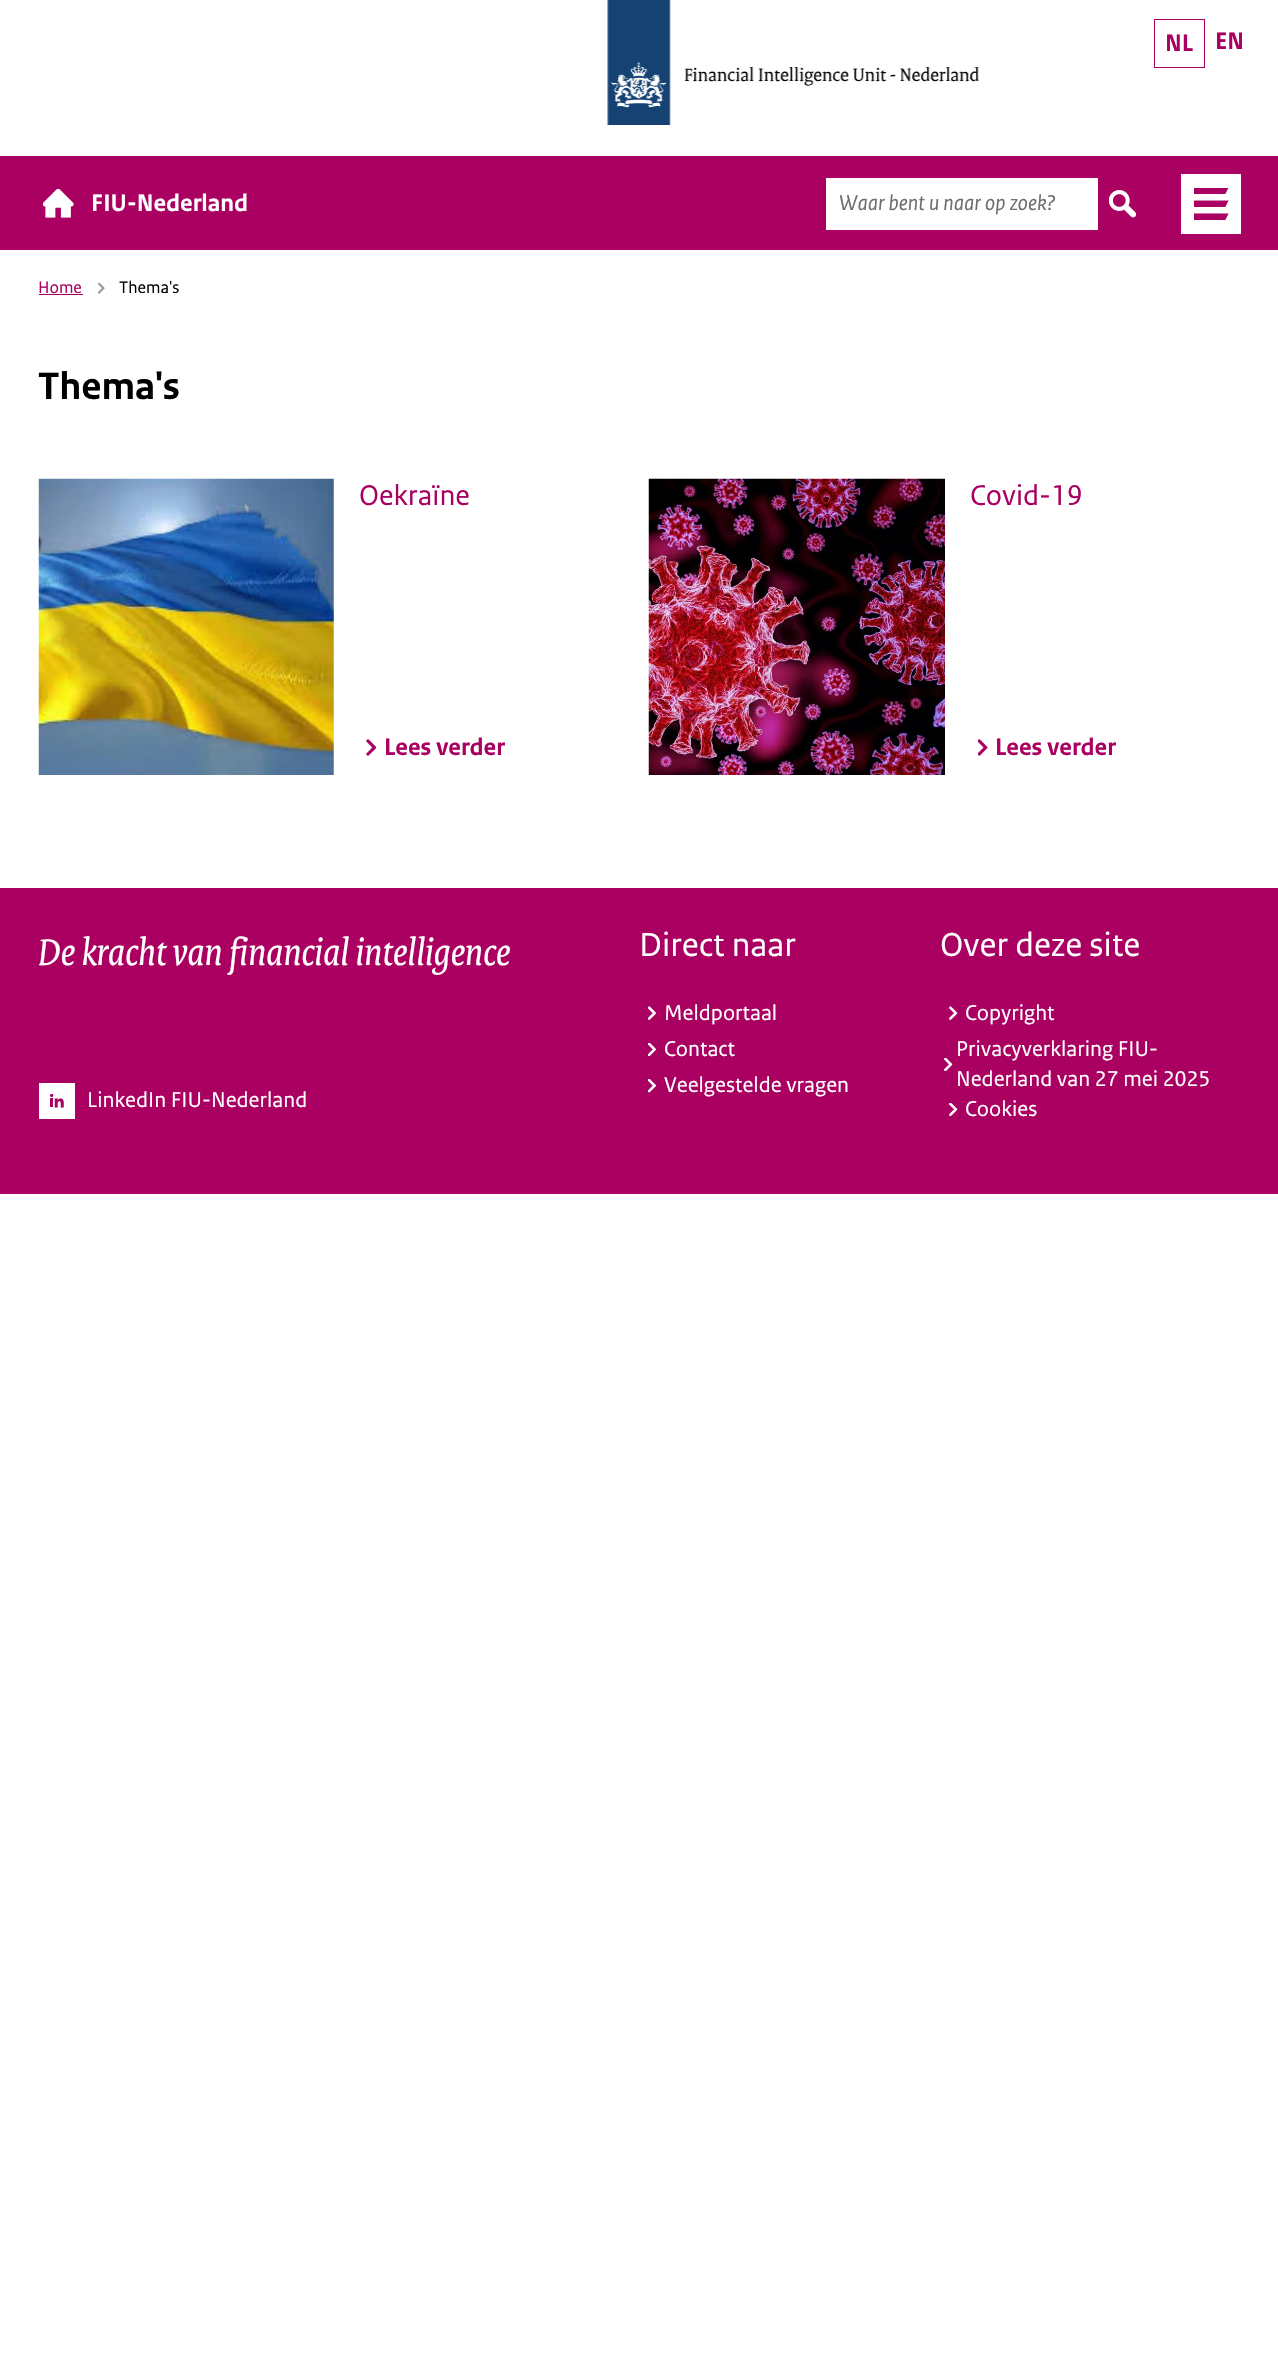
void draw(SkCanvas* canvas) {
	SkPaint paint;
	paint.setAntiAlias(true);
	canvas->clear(0xffffffff);
	canvas->drawImageRect(SkImages::DeferredFromEncodedData(SkData::MakeFromFileName("img1.png")), SkRect::MakeXYWH(607, 0, 372, 125), SkSamplingOptions());
	paint.setStroke(true);
	paint.setStrokeWidth(1);
	paint.setColor(0xffa90061);
	canvas->drawRect(SkRect::MakeXYWH(1154.5, 19.5, 50, 48), paint);
	SkFont f1(fontMgr->matchFamilyStyle("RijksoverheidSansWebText", SkFontStyle::Bold()), 25);
	f1.setSubpixel(true);
	paint.setStroke(false);
	canvas->drawString("NL", 1165, 51, f1, paint);
	canvas->drawString("EN", 1215, 49, f1, paint);
	canvas->drawRect(SkRect::MakeXYWH(0, 156, 1278, 94), paint);
	canvas->drawImageRect(SkImages::DeferredFromEncodedData(SkData::MakeFromFileName("img2.png")), SkRect::MakeXYWH(43, 189, 31, 29), SkSamplingOptions());
	paint.setColor(0xffffffff);
	canvas->drawString("FIU-Nederland", 91, 211, f1, paint);
	canvas->drawRect(SkRect::MakeXYWH(826, 178, 272, 52), paint);
	SkFont f2(fontMgr->matchFamilyStyle("RijksoverheidSansWebText", SkFontStyle::Italic()), 22.5);
	f2.setSubpixel(true);
	paint.setColor(0xff706f6f);
	canvas->drawString("Waar bent u naar op zoek?", 839, 210, f2, paint);
	canvas->drawImageRect(SkImages::DeferredFromEncodedData(SkData::MakeFromFileName("img3.png")), SkRect::MakeXYWH(1109, 190, 27, 28), SkSamplingOptions());
	paint.setColor(0xffffffff);
	canvas->drawRect(SkRect::MakeXYWH(1181, 174, 60, 60), paint);
	canvas->drawImageRect(SkImages::DeferredFromEncodedData(SkData::MakeFromFileName("img4.png")), SkRect::MakeXYWH(1194, 188, 35, 32), SkSamplingOptions());
	SkFont f3(fontMgr->matchFamilyStyle("RijksoverheidSansWebText", SkFontStyle::Normal()), 17.5);
	f3.setSubpixel(true);
	paint.setColor(0xffa90061);
	canvas->drawString("Home", 38, 293, f3, paint);
	canvas->drawRect(SkRect::MakeXYWH(39, 294, 44, 1), paint);
	canvas->drawImageRect(SkImages::DeferredFromEncodedData(SkData::MakeFromFileName("img5.png")), SkRect::MakeXYWH(98, 283, 7, 11), SkSamplingOptions());
	paint.setColor(0xff000000);
	canvas->drawString("Thema's", 119, 293, f3, paint);
	SkFont f4(fontMgr->matchFamilyStyle("RijksoverheidSansWebText", SkFontStyle::Bold()), 40);
	f4.setSubpixel(true);
	canvas->drawString("Thema's", 38, 399, f4, paint);
	canvas->drawImageRect(SkImages::DeferredFromEncodedData(SkData::MakeFromFileName("img6.png")), SkRect::MakeXYWH(38, 478, 296, 297), SkSamplingOptions());
	SkFont f5(fontMgr->matchFamilyStyle("RijksoverheidSansWebText", SkFontStyle::Normal()), 30);
	f5.setSubpixel(true);
	paint.setColor(0xffa90061);
	canvas->drawString("Oekraïne", 359, 505, f5, paint);
	canvas->drawImageRect(SkImages::DeferredFromEncodedData(SkData::MakeFromFileName("img7.png")), SkRect::MakeXYWH(366, 739, 10, 17), SkSamplingOptions());
	canvas->drawString("Lees verder", 384, 755, f1, paint);
	canvas->drawImageRect(SkImages::DeferredFromEncodedData(SkData::MakeFromFileName("img8.png")), SkRect::MakeXYWH(648, 478, 297, 297), SkSamplingOptions());
	canvas->drawString("Covid-19", 970, 505, f5, paint);
	canvas->drawImageRect(SkImages::DeferredFromEncodedData(SkData::MakeFromFileName("img9.png")), SkRect::MakeXYWH(978, 739, 10, 17), SkSamplingOptions());
	canvas->drawString("Lees verder", 995, 755, f1, paint);
	canvas->drawRect(SkRect::MakeXYWH(0, 888, 1278, 306), paint);
	SkFont f6(fontMgr->matchFamilyStyle("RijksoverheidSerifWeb", SkFontStyle::Italic()), 40);
	f6.setSubpixel(true);
	paint.setColor(0xffffffff);
	canvas->drawString("De kracht van financial intelligence", 38, 965, f6, paint);
	canvas->drawRect(SkRect::MakeXYWH(39, 1083, 36, 36), paint);
	canvas->drawImageRect(SkImages::DeferredFromEncodedData(SkData::MakeFromFileName("img10.png")), SkRect::MakeXYWH(50, 1094, 14, 14), SkSamplingOptions());
	SkFont f7(fontMgr->matchFamilyStyle("RijksoverheidSansWebText", SkFontStyle::Normal()), 22.5);
	f7.setSubpixel(true);
	canvas->drawString("LinkedIn FIU-Nederland", 87, 1107, f7, paint);
	SkFont f8(fontMgr->matchFamilyStyle("RijksoverheidSansWebText", SkFontStyle::Normal()), 35);
	f8.setSubpixel(true);
	canvas->drawString("Direct naar", 639, 956, f8, paint);
	canvas->drawImageRect(SkImages::DeferredFromEncodedData(SkData::MakeFromFileName("img11.png")), SkRect::MakeXYWH(648, 1006, 8, 14), SkSamplingOptions());
	canvas->drawString("Meldportaal", 664, 1020, f7, paint);
	canvas->drawImageRect(SkImages::DeferredFromEncodedData(SkData::MakeFromFileName("img12.png")), SkRect::MakeXYWH(648, 1043, 8, 13), SkSamplingOptions());
	canvas->drawString("Contact", 664, 1056, f7, paint);
	canvas->drawImageRect(SkImages::DeferredFromEncodedData(SkData::MakeFromFileName("img13.png")), SkRect::MakeXYWH(648, 1079, 8, 14), SkSamplingOptions());
	canvas->drawString("Veelgestelde vragen", 664, 1092, f7, paint);
	canvas->drawString("Over deze site", 940, 956, f8, paint);
	canvas->drawImageRect(SkImages::DeferredFromEncodedData(SkData::MakeFromFileName("img14.png")), SkRect::MakeXYWH(949, 1006, 9, 14), SkSamplingOptions());
	canvas->drawString("Copyright", 965, 1020, f7, paint);
	canvas->drawString("Privacyverklaring FIU-", 956, 1056, f7, paint);
	canvas->drawImageRect(SkImages::DeferredFromEncodedData(SkData::MakeFromFileName("img15.png")), SkRect::MakeXYWH(944, 1058, 9, 13), SkSamplingOptions());
	canvas->drawString("Nederland van 27 mei 2025", 956, 1086, f7, paint);
	canvas->drawImageRect(SkImages::DeferredFromEncodedData(SkData::MakeFromFileName("img15.png")), SkRect::MakeXYWH(949, 1103, 9, 13), SkSamplingOptions());
	canvas->drawString("Cookies", 965, 1116, f7, paint);
}
